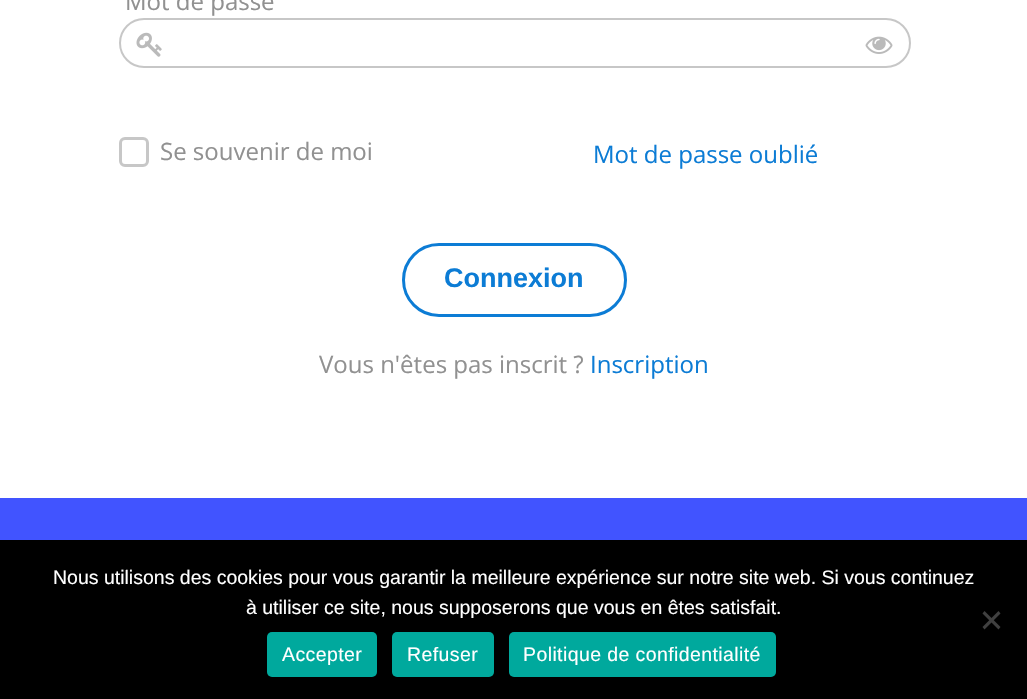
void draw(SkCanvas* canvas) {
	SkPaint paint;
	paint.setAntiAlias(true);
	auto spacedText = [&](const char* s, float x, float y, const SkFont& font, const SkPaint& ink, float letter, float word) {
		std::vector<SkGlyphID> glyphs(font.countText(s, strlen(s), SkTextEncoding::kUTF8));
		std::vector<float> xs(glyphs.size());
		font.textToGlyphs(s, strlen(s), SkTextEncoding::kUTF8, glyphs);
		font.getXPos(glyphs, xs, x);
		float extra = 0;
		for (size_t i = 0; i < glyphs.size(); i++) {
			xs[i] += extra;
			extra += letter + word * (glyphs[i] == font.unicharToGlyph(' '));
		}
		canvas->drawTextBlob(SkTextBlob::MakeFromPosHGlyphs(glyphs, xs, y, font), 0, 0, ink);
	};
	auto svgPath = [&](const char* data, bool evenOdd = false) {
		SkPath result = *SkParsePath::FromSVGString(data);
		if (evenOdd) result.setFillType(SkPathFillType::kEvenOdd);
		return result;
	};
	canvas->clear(0xffffffff);
	SkFont f1(fontMgr->matchFamilyStyle("Open Sans", SkFontStyle::Normal()), 24);
	f1.setSubpixel(true);
	paint.setColor(0xff919191);
	canvas->drawString("Mot de passe", 125, 10, f1, paint);
	paint.setStroke(true);
	paint.setStrokeWidth(2);
	paint.setColor(0xffc7c7c7);
	canvas->drawRoundRect(SkRect::MakeXYWH(120, 19, 790, 48), 24, 24, paint);
	canvas->drawImageRect(SkImages::DeferredFromEncodedData(SkData::MakeFromFileName("img1.png")), SkRect::MakeXYWH(136, 32, 26, 25), SkSamplingOptions());
	canvas->drawImageRect(SkImages::DeferredFromEncodedData(SkData::MakeFromFileName("img2.png")), SkRect::MakeXYWH(865, 36, 28, 18), SkSamplingOptions());
	paint.setStrokeWidth(3);
	canvas->drawRoundRect(SkRect::MakeXYWH(120.5, 138.5, 27, 27), 4.5, 4.5, paint);
	paint.setStroke(false);
	paint.setColor(0xff919191);
	canvas->drawString("Se souvenir de moi", 160, 160, f1, paint);
	paint.setStroke(true);
	paint.setColor(0xff0c7cd5);
	canvas->drawRoundRect(SkRect::MakeXYWH(403.5, 244.5, 222, 71), 35.5, 35.5, paint);
	SkFont f2(fontMgr->matchFamilyStyle("Liberation Sans", SkFontStyle::Bold()), 27);
	f2.setSubpixel(true);
	paint.setStroke(false);
	canvas->drawString("Connexion", 444, 287, f2, paint);
	canvas->drawString("Mot de passe oublié", 593, 163, f1, paint);
	paint.setColor(0xff919191);
	canvas->drawString("Vous n'êtes pas inscrit ?", 319, 373, f1, paint);
	paint.setColor(0xff0c7cd5);
	canvas->drawString("Inscription", 590, 373, f1, paint);
	paint.setColor(0xff4154ff);
	canvas->drawRect(SkRect::MakeXYWH(0, 498, 1027, 42), paint);
	paint.setColor(0xff000000);
	canvas->drawRect(SkRect::MakeXYWH(0, 540, 1027, 159), paint);
	SkFont f3(fontMgr->matchFamilyStyle("Liberation Sans", SkFontStyle::Normal()), 19.5);
	f3.setSubpixel(true);
	paint.setColor(0xffffffff);
	canvas->drawString("Nous utilisons des cookies pour vous garantir la meilleure expérience sur notre site web. Si vous continuez", 53, 584, f3, paint);
	canvas->drawString("à utiliser ce site, nous supposerons que vous en êtes satisfait.", 246, 614, f3, paint);
	paint.setColor(0xff404040);
	canvas->drawPath(svgPath("M998.5 611L1000.5 613.5L984.5 629.5L982.5 627Z"), paint);
	canvas->drawPath(svgPath("M982.5 613.5L984.5 611L1000.5 627L998.5 629.5Z"), paint);
	paint.setColor(0xff00a99d);
	canvas->drawRoundRect(SkRect::MakeXYWH(267, 632, 110, 45), 5, 5, paint);
	paint.setColor(0xffffffff);
	spacedText("Accepter", 282, 661, f3, paint, 0.4, 0);
	paint.setColor(0xff00a99d);
	canvas->drawRoundRect(SkRect::MakeXYWH(392, 632, 102, 45), 5, 5, paint);
	paint.setColor(0xffffffff);
	spacedText("Refuser", 407, 661, f3, paint, 0.4, 0);
	paint.setColor(0xff00a99d);
	canvas->drawRoundRect(SkRect::MakeXYWH(509, 632, 267, 45), 5, 5, paint);
	paint.setColor(0xffffffff);
	spacedText("Politique de confidentialité", 523, 661, f3, paint, 0.4, 0);
}
